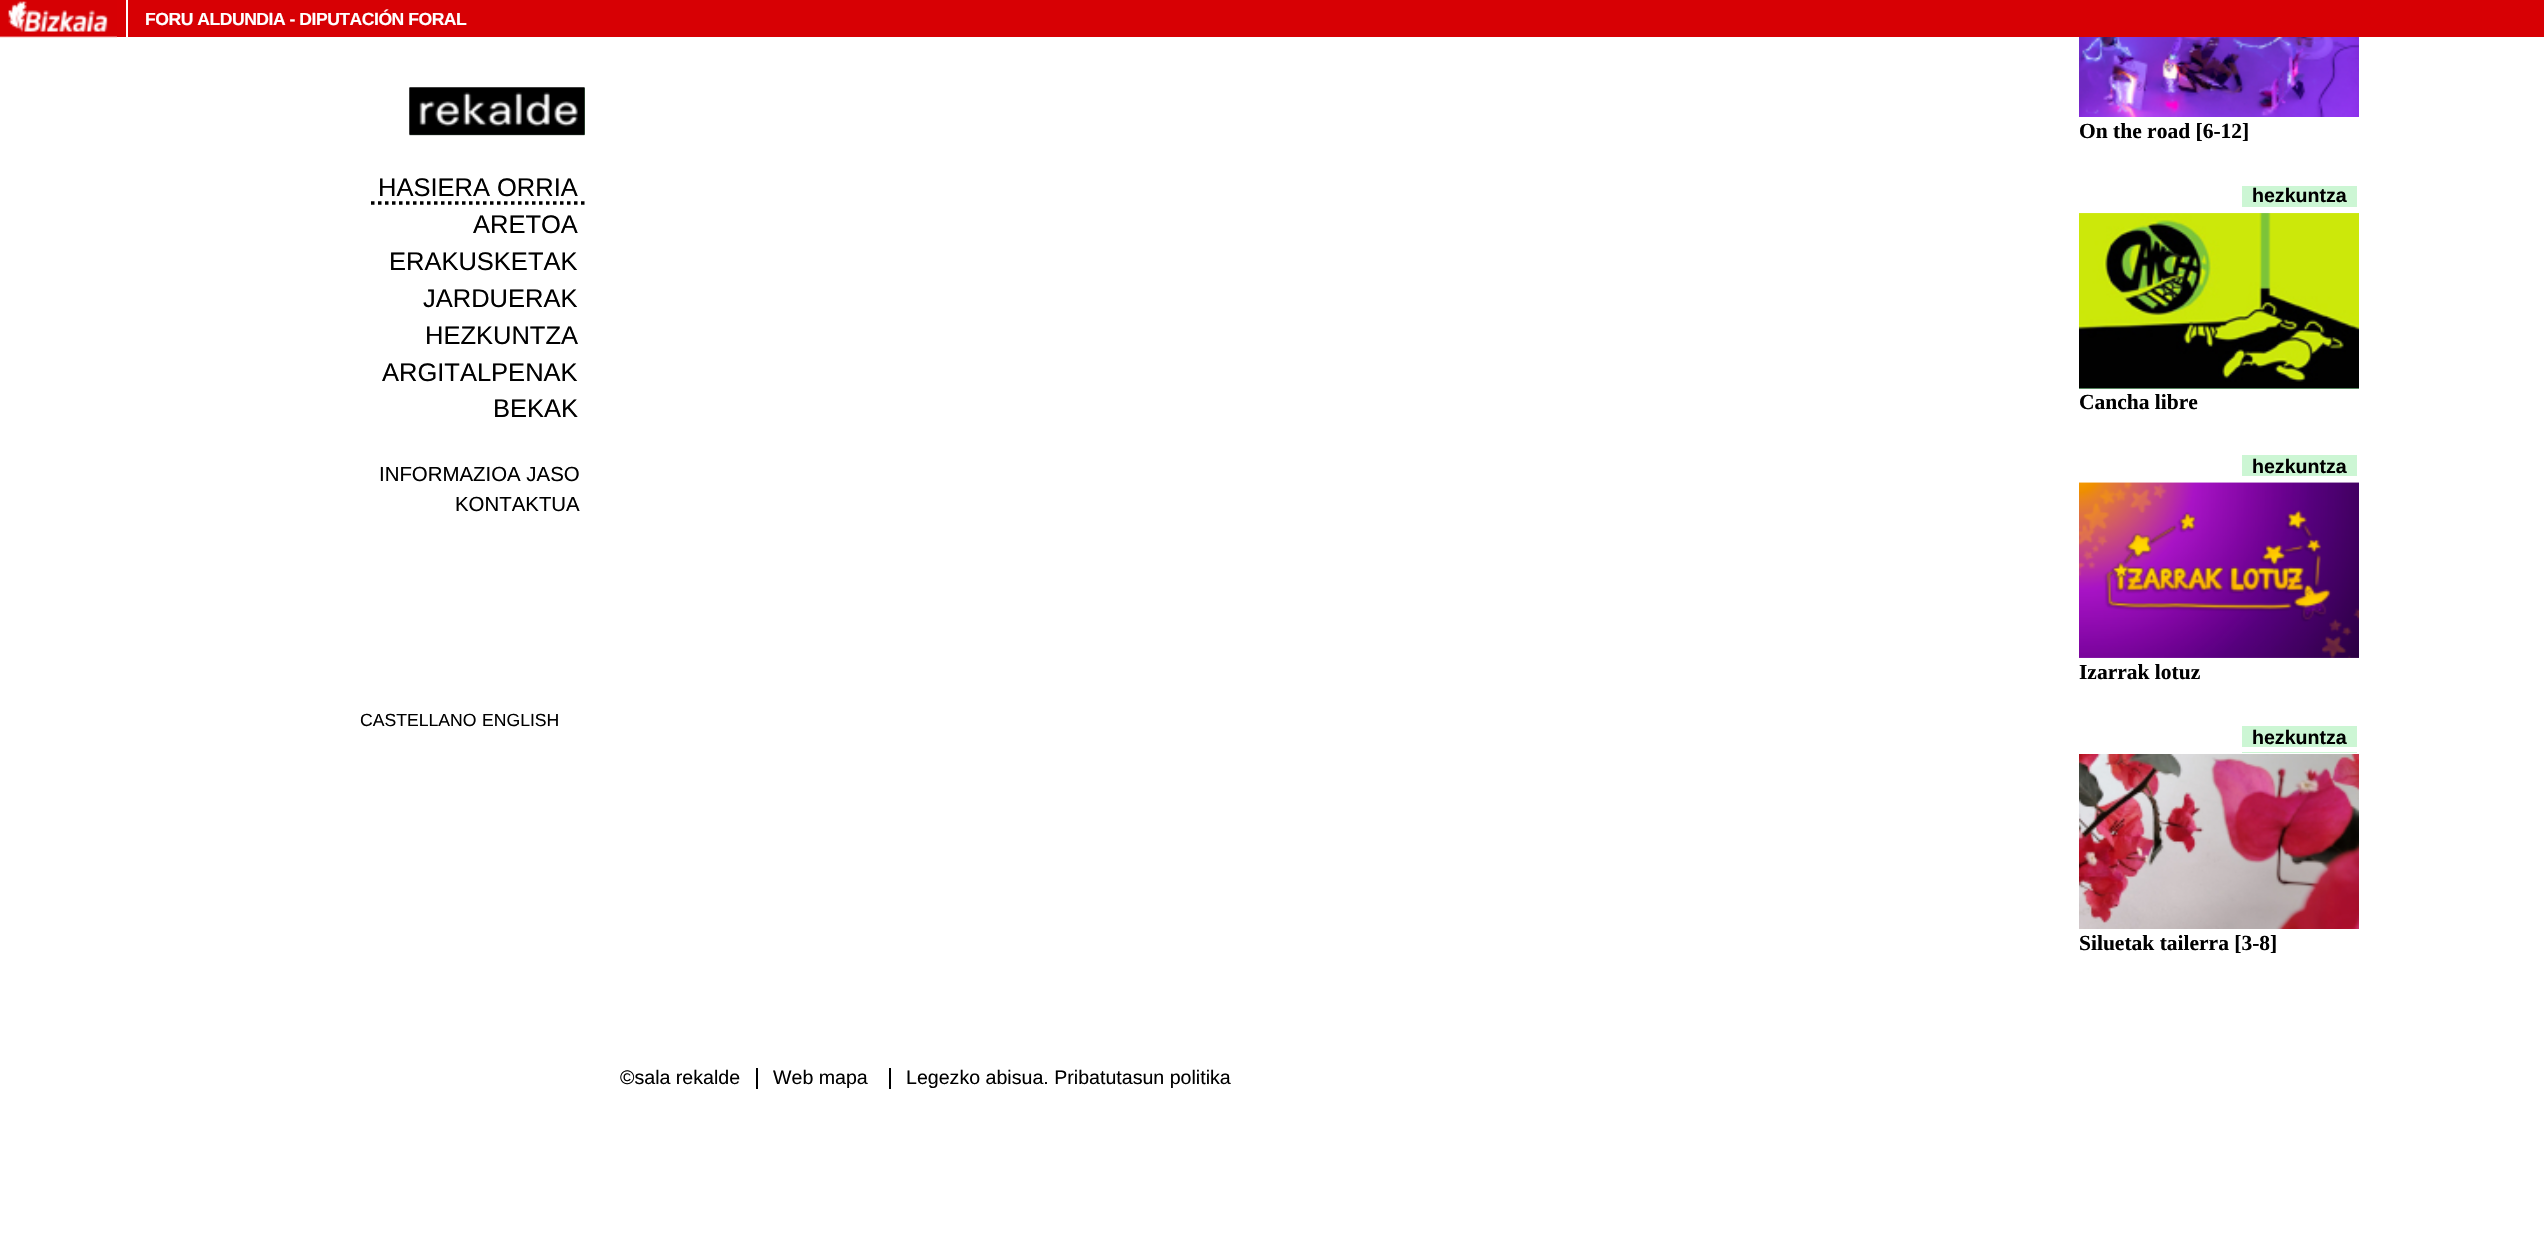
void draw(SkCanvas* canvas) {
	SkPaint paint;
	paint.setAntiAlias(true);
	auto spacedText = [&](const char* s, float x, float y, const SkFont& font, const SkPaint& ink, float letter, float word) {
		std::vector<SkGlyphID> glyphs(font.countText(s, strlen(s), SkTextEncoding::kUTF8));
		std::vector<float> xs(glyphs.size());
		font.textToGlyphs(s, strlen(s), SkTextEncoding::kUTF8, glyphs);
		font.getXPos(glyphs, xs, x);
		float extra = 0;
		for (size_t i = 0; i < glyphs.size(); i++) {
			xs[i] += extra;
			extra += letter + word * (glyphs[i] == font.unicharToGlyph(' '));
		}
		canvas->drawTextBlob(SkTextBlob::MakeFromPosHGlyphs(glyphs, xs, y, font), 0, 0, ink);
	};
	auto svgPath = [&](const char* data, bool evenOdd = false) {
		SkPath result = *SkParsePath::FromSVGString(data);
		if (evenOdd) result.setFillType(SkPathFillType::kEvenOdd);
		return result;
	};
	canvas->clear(0xffffffff);
	paint.setColor(0xffd70004);
	canvas->drawRect(SkRect::MakeXYWH(117, 0, 2427, 37), paint);
	canvas->drawImageRect(SkImages::DeferredFromEncodedData(SkData::MakeFromFileName("img1.png")), SkRect::MakeXYWH(0, 0, 117, 38), SkSamplingOptions());
	paint.setColor(0xffffffff);
	canvas->drawRect(SkRect::MakeXYWH(126, 0, 2, 42), paint);
	SkFont f1(fontMgr->matchFamilyStyle("Liberation Sans", SkFontStyle::Bold()), 17.6);
	f1.setSubpixel(true);
	spacedText("FORU ALDUNDIA - DIPUTACIÓN FORAL", 145, 25, f1, paint, -0.5, 0);
	paint.setColor(0xff99eeaa);
	canvas->drawRect(SkRect::MakeXYWH(410, 88, 175, 47), paint);
	canvas->drawImageRect(SkImages::DeferredFromEncodedData(SkData::MakeFromFileName("img2.png")), SkRect::MakeXYWH(409, 87, 176, 49), SkSamplingOptions());
	canvas->drawImageRect(SkImages::DeferredFromEncodedData(SkData::MakeFromFileName("img3.png")), SkRect::MakeXYWH(409, 87, 176, 48), SkSamplingOptions());
	SkFont f2(fontMgr->matchFamilyStyle("Liberation Sans", SkFontStyle::Normal()), 25.5);
	f2.setSubpixel(true);
	paint.setColor(0xff000000);
	canvas->drawString("HASIERA ORRIA", 378, 196, f2, paint);
	paint.setStroke(true);
	paint.setStrokeWidth(3.5);
	paint.setPathEffect(SkDashPathEffect::Make({{3.5f, 3.5f}}, 0));
	canvas->drawPath(svgPath("M371 203H584.5"), paint);
	paint.setPathEffect(nullptr);
	paint.setStroke(false);
	canvas->drawString("ARETOA", 473, 233, f2, paint);
	canvas->drawString("ERAKUSKETAK", 389, 270, f2, paint);
	canvas->drawString("JARDUERAK", 423, 307, f2, paint);
	canvas->drawString("HEZKUNTZA", 425, 344, f2, paint);
	canvas->drawString("ARGITALPENAK", 382, 381, f2, paint);
	canvas->drawString("BEKAK", 493, 417, f2, paint);
	SkFont f3(fontMgr->matchFamilyStyle("Liberation Sans", SkFontStyle::Normal()), 20.4);
	f3.setSubpixel(true);
	canvas->drawString("INFORMAZIOA JASO", 379, 481, f3, paint);
	canvas->drawString("KONTAKTUA", 455, 511, f3, paint);
	canvas->drawImageRect(SkImages::DeferredFromEncodedData(SkData::MakeFromFileName("img4.png")), SkRect::MakeXYWH(2079, 37, 280, 80), SkSamplingOptions());
	SkFont f4(fontMgr->matchFamilyStyle("Liberation Serif", SkFontStyle::Bold()), 21.5);
	f4.setSubpixel(true);
	canvas->drawString("On the road [6-12]", 2079, 138, f4, paint);
	paint.setColor(0xffccf6d4);
	canvas->drawRect(SkRect::MakeXYWH(2242, 186, 115, 21), paint);
	SkFont f5(fontMgr->matchFamilyStyle("Liberation Sans", SkFontStyle::Bold()), 19.6);
	f5.setSubpixel(true);
	paint.setColor(0xff000000);
	canvas->drawString("hezkuntza", 2252, 202, f5, paint);
	paint.setColor(0xff99eeaa);
	canvas->drawRect(SkRect::MakeXYWH(2079, 388, 280, 1), paint);
	canvas->drawImageRect(SkImages::DeferredFromEncodedData(SkData::MakeFromFileName("img5.png")), SkRect::MakeXYWH(2079, 213, 280, 176), SkSamplingOptions());
	canvas->drawImageRect(SkImages::DeferredFromEncodedData(SkData::MakeFromFileName("img6.png")), SkRect::MakeXYWH(2079, 213, 280, 176), SkSamplingOptions());
	paint.setColor(0xff000000);
	canvas->drawString("Cancha libre", 2079, 409, f4, paint);
	paint.setColor(0xffccf6d4);
	canvas->drawRect(SkRect::MakeXYWH(2242, 455, 115, 21), paint);
	paint.setColor(0xff000000);
	canvas->drawString("hezkuntza", 2252, 473, f5, paint);
	canvas->drawImageRect(SkImages::DeferredFromEncodedData(SkData::MakeFromFileName("img7.png")), SkRect::MakeXYWH(2079, 482, 280, 176), SkSamplingOptions());
	canvas->drawImageRect(SkImages::DeferredFromEncodedData(SkData::MakeFromFileName("img8.png")), SkRect::MakeXYWH(2079, 482, 280, 176), SkSamplingOptions());
	canvas->drawString("Izarrak lotuz", 2079, 679, f4, paint);
	paint.setColor(0xffccf6d4);
	canvas->drawRect(SkRect::MakeXYWH(2242, 726, 115, 27), paint);
	paint.setColor(0xff000000);
	canvas->drawString("hezkuntza", 2252, 744, f5, paint);
	paint.setColor(0xffffffff);
	canvas->drawRect(SkRect::MakeXYWH(2242, 747, 115, 5), paint);
	canvas->drawImageRect(SkImages::DeferredFromEncodedData(SkData::MakeFromFileName("img9.png")), SkRect::MakeXYWH(2079, 754, 280, 175), SkSamplingOptions());
	paint.setColor(0xff000000);
	canvas->drawString("Siluetak tailerra [3-8]", 2079, 950, f4, paint);
	SkFont f6(fontMgr->matchFamilyStyle("Liberation Sans", SkFontStyle::Normal()), 19.6);
	f6.setSubpixel(true);
	canvas->drawString("©sala rekalde", 620, 1084, f6, paint);
	canvas->drawString("Web mapa", 773, 1084, f6, paint);
	canvas->drawRect(SkRect::MakeXYWH(756, 1068, 2, 21), paint);
	canvas->drawString("Legezko abisua. Pribatutasun politika", 906, 1084, f6, paint);
	canvas->drawRect(SkRect::MakeXYWH(889, 1068, 2, 21), paint);
	SkFont f7(fontMgr->matchFamilyStyle("Liberation Sans", SkFontStyle::Normal()), 17.6);
	f7.setSubpixel(true);
	canvas->drawString("CASTELLANO", 360, 726, f7, paint);
	canvas->drawString("ENGLISH", 482, 726, f7, paint);
}
